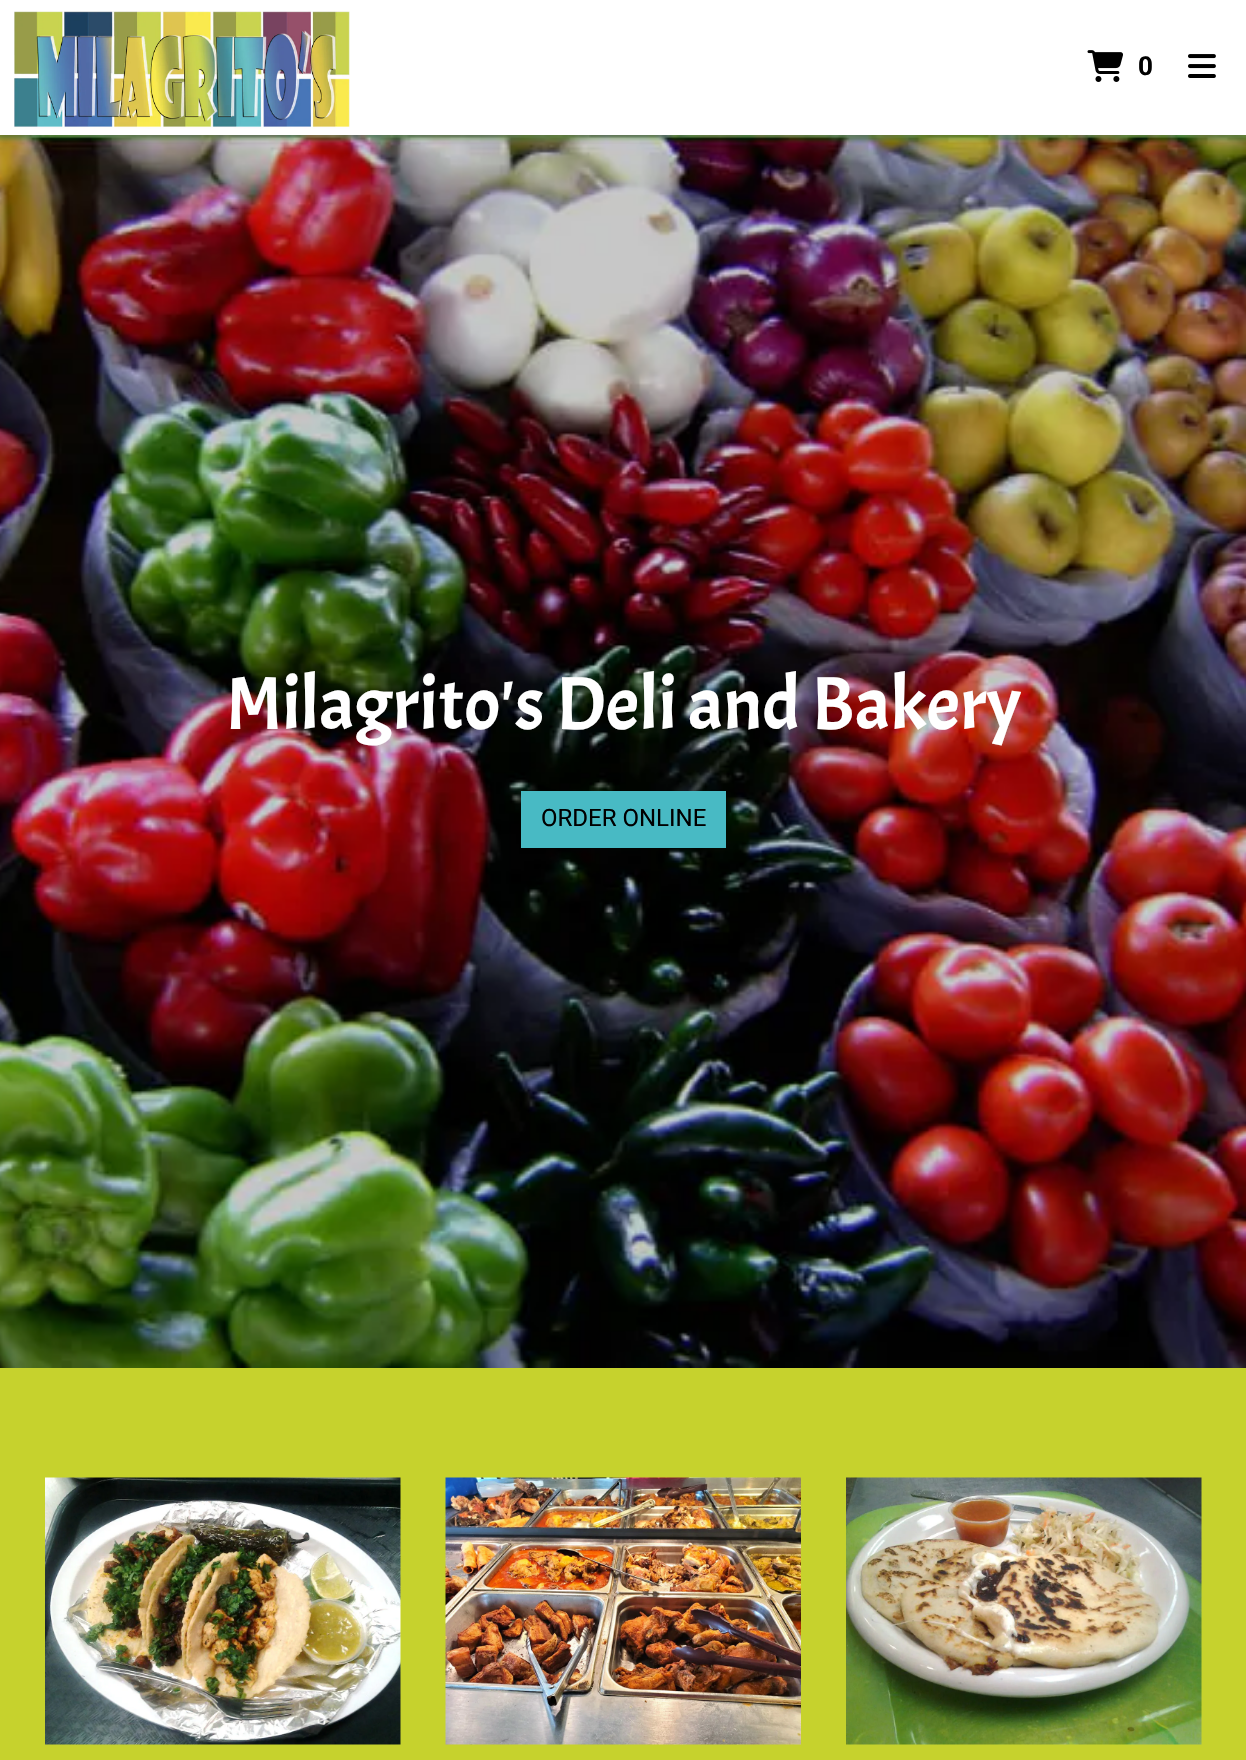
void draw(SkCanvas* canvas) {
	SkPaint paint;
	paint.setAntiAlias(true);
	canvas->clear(0xffffffff);
	canvas->drawImageRect(SkImages::DeferredFromEncodedData(SkData::MakeFromFileName("img4.png")), SkRect::MakeXYWH(0, 135, 1246, 1233), SkSamplingOptions());
	canvas->save();
	canvas->clipRect(SkRect::MakeXYWH(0, 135, 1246, 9));
	paint.setColor(0x47202124);
	paint.setMaskFilter(SkMaskFilter::MakeBlur(kNormal_SkBlurStyle, 4.5));
	canvas->drawRect(SkRect::MakeXYWH(0, 2, 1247, 135), paint);
	paint.setMaskFilter(nullptr);
	canvas->restore();
	canvas->drawImageRect(SkImages::DeferredFromEncodedData(SkData::MakeFromFileName("img1.png")), SkRect::MakeXYWH(14, 10, 336, 119), SkSamplingOptions());
	canvas->drawImageRect(SkImages::DeferredFromEncodedData(SkData::MakeFromFileName("img2.png")), SkRect::MakeXYWH(1087, 50, 36, 32), SkSamplingOptions());
	SkFont f1(fontMgr->matchFamilyStyle("Roboto", SkFontStyle::Bold()), 26);
	f1.setSubpixel(true);
	paint.setColor(0xff000000);
	canvas->drawString("0", 1138, 75, f1, paint);
	canvas->drawImageRect(SkImages::DeferredFromEncodedData(SkData::MakeFromFileName("img3.png")), SkRect::MakeXYWH(1188, 54, 28, 24), SkSamplingOptions());
	SkFont f2(fontMgr->matchFamilyStyle("Acme", SkFontStyle::Normal()), 75);
	f2.setSubpixel(true);
	paint.setColor(0xffffffff);
	canvas->drawString("Milagrito's Deli and Bakery", 226, 729, f2, paint);
	paint.setColor(0xff48bac4);
	canvas->drawRect(SkRect::MakeXYWH(521, 791, 205, 57), paint);
	SkFont f3(fontMgr->matchFamilyStyle("Roboto", SkFontStyle::Normal()), 24);
	f3.setSubpixel(true);
	paint.setColor(0xff000000);
	canvas->drawString("ORDER ONLINE", 541, 826, f3, paint);
	paint.setColor(0xffc6d22d);
	canvas->drawRect(SkRect::MakeXYWH(0, 1368, 1246, 392), paint);
	canvas->drawImageRect(SkImages::DeferredFromEncodedData(SkData::MakeFromFileName("img5.png")), SkRect::MakeXYWH(45, 1477, 356, 268), SkSamplingOptions());
	canvas->drawImageRect(SkImages::DeferredFromEncodedData(SkData::MakeFromFileName("img6.png")), SkRect::MakeXYWH(445, 1477, 356, 268), SkSamplingOptions());
	canvas->drawImageRect(SkImages::DeferredFromEncodedData(SkData::MakeFromFileName("img7.png")), SkRect::MakeXYWH(846, 1477, 356, 268), SkSamplingOptions());
}
